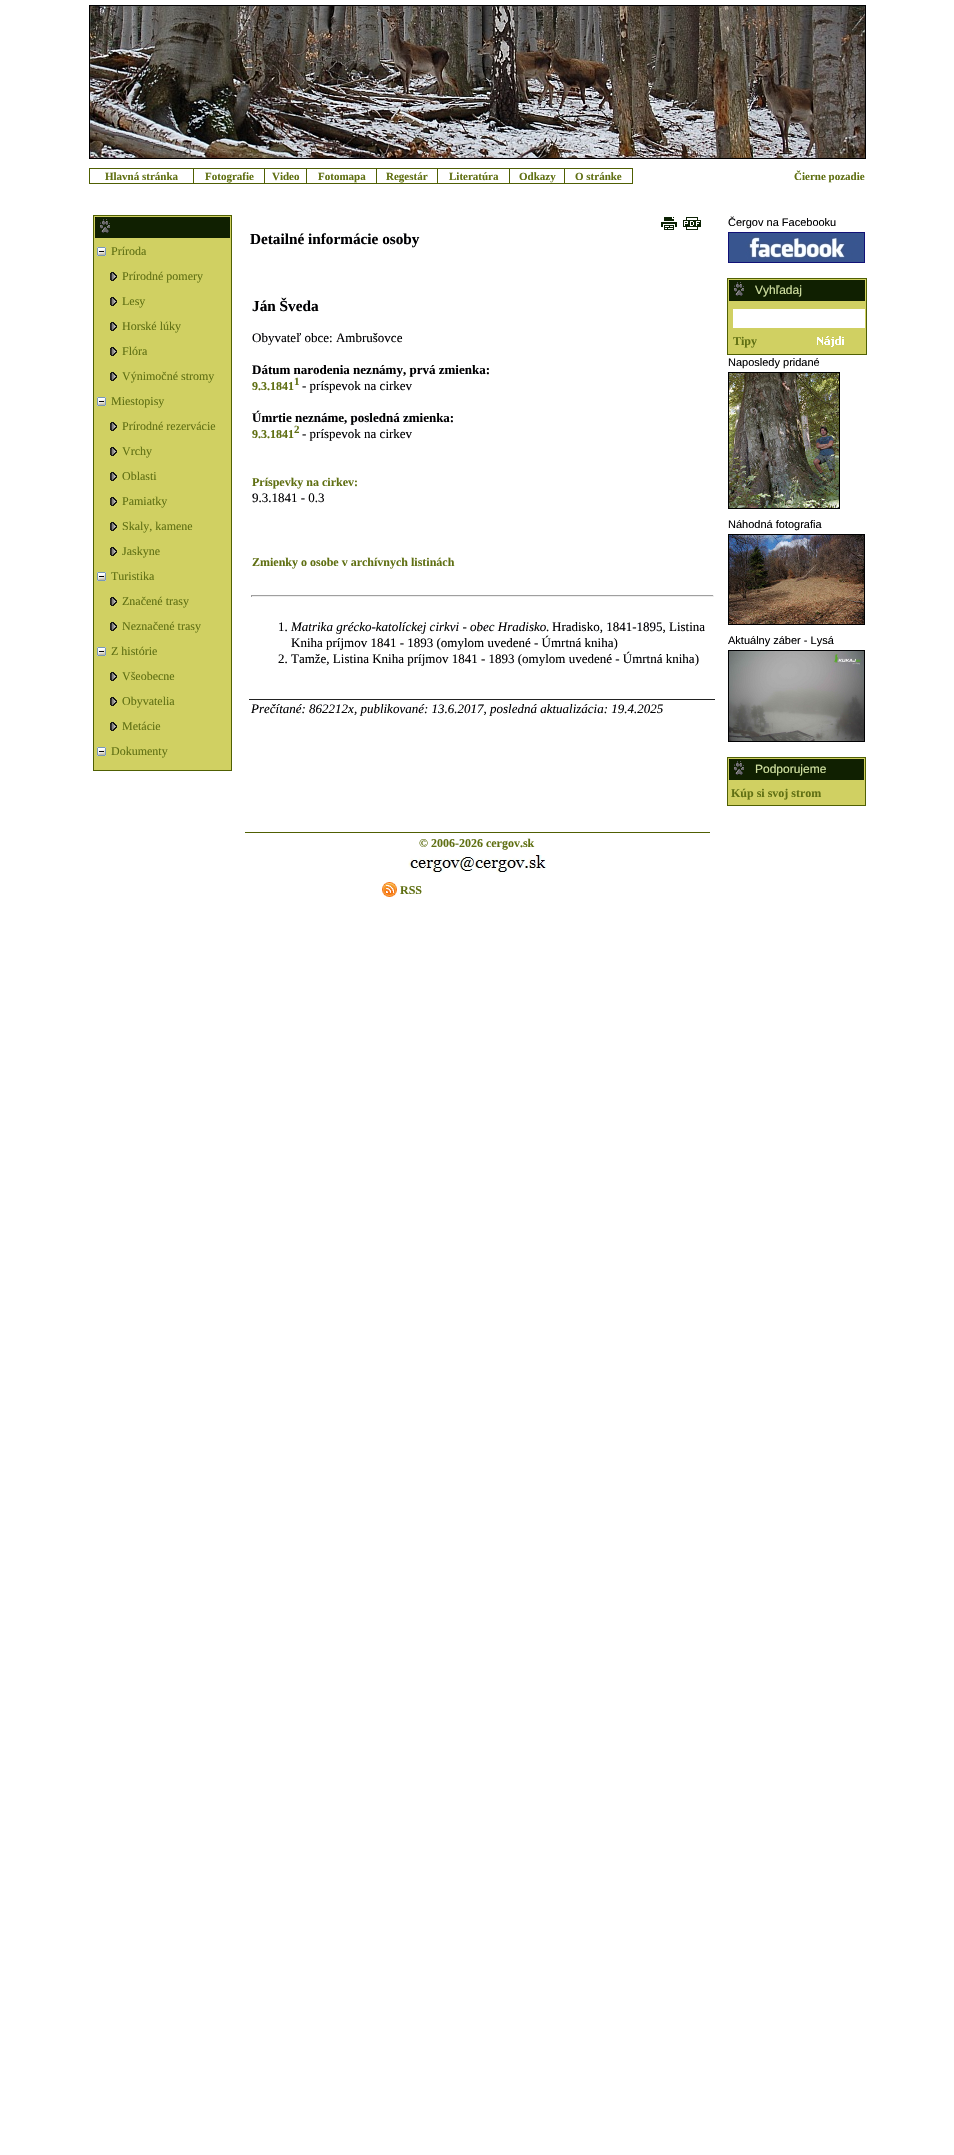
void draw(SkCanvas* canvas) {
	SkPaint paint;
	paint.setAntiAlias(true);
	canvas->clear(0xffffffff);
	paint.setStroke(true);
	paint.setStrokeWidth(1);
	paint.setColor(0xff000002);
	canvas->drawRect(SkRect::MakeXYWH(89.5, 5.5, 776, 153), paint);
	canvas->drawImageRect(SkImages::DeferredFromEncodedData(SkData::MakeFromFileName("img1.png")), SkRect::MakeXYWH(90, 6, 775, 152), SkSamplingOptions());
	paint.setStroke(false);
	paint.setColor(0xff506003);
	canvas->drawRect(SkRect::MakeXYWH(564, 168, 69, 1), paint);
	canvas->drawRect(SkRect::MakeXYWH(632, 168, 1, 16), paint);
	canvas->drawRect(SkRect::MakeXYWH(564, 183, 69, 1), paint);
	canvas->drawRect(SkRect::MakeXYWH(564, 168, 1, 16), paint);
	canvas->drawRect(SkRect::MakeXYWH(509, 168, 56, 1), paint);
	canvas->drawRect(SkRect::MakeXYWH(509, 183, 56, 1), paint);
	canvas->drawRect(SkRect::MakeXYWH(509, 168, 1, 16), paint);
	canvas->drawRect(SkRect::MakeXYWH(437, 168, 73, 1), paint);
	canvas->drawRect(SkRect::MakeXYWH(437, 183, 73, 1), paint);
	canvas->drawRect(SkRect::MakeXYWH(437, 168, 1, 16), paint);
	canvas->drawRect(SkRect::MakeXYWH(376, 168, 62, 1), paint);
	canvas->drawRect(SkRect::MakeXYWH(376, 183, 62, 1), paint);
	canvas->drawRect(SkRect::MakeXYWH(376, 168, 1, 16), paint);
	canvas->drawRect(SkRect::MakeXYWH(306, 168, 71, 1), paint);
	canvas->drawRect(SkRect::MakeXYWH(306, 183, 71, 1), paint);
	canvas->drawRect(SkRect::MakeXYWH(306, 168, 1, 16), paint);
	canvas->drawRect(SkRect::MakeXYWH(264, 168, 43, 1), paint);
	canvas->drawRect(SkRect::MakeXYWH(264, 183, 43, 1), paint);
	canvas->drawRect(SkRect::MakeXYWH(264, 168, 1, 16), paint);
	canvas->drawRect(SkRect::MakeXYWH(193, 168, 72, 1), paint);
	canvas->drawRect(SkRect::MakeXYWH(193, 183, 72, 1), paint);
	canvas->drawRect(SkRect::MakeXYWH(193, 168, 1, 16), paint);
	canvas->drawRect(SkRect::MakeXYWH(89, 168, 105, 1), paint);
	canvas->drawRect(SkRect::MakeXYWH(89, 183, 105, 1), paint);
	canvas->drawRect(SkRect::MakeXYWH(89, 168, 1, 16), paint);
	SkFont f1(fontMgr->matchFamilyStyle("Liberation Serif", SkFontStyle::Bold()), 11);
	f1.setSubpixel(true);
	paint.setColor(0xff607013);
	canvas->drawString("Hlavná stránka", 105, 180, f1, paint);
	canvas->drawString("Fotografie", 205, 180, f1, paint);
	canvas->drawString("Video", 272, 180, f1, paint);
	canvas->drawString("Fotomapa", 318, 180, f1, paint);
	canvas->drawString("Regestár", 386, 180, f1, paint);
	canvas->drawString("Literatúra", 449, 180, f1, paint);
	canvas->drawString("Odkazy", 519, 180, f1, paint);
	canvas->drawString("O stránke", 575, 180, f1, paint);
	canvas->drawString("Čierne pozadie", 794, 180, f1, paint);
	paint.setColor(0xffd0d062);
	canvas->drawRect(SkRect::MakeXYWH(94, 216, 137, 554), paint);
	paint.setColor(0xff506003);
	canvas->drawRect(SkRect::MakeXYWH(93, 215, 139, 1), paint);
	canvas->drawRect(SkRect::MakeXYWH(231, 215, 1, 556), paint);
	canvas->drawRect(SkRect::MakeXYWH(93, 770, 139, 1), paint);
	canvas->drawRect(SkRect::MakeXYWH(93, 215, 1, 556), paint);
	paint.setColor(0xff102001);
	canvas->drawRect(SkRect::MakeXYWH(95, 217, 135, 21), paint);
	canvas->drawImageRect(SkImages::DeferredFromEncodedData(SkData::MakeFromFileName("img2.png")), SkRect::MakeXYWH(95, 217, 15, 16), SkSamplingOptions());
	canvas->drawImageRect(SkImages::DeferredFromEncodedData(SkData::MakeFromFileName("img3.png")), SkRect::MakeXYWH(97, 247, 9, 9), SkSamplingOptions());
	SkFont f2(fontMgr->matchFamilyStyle("Liberation Serif", SkFontStyle::Normal()), 12);
	f2.setSubpixel(true);
	paint.setColor(0xff607013);
	canvas->drawString("Príroda", 111, 255, f2, paint);
	canvas->drawImageRect(SkImages::DeferredFromEncodedData(SkData::MakeFromFileName("img4.png")), SkRect::MakeXYWH(110, 272, 7, 9), SkSamplingOptions());
	canvas->drawString("Prírodné pomery", 122, 280, f2, paint);
	canvas->drawImageRect(SkImages::DeferredFromEncodedData(SkData::MakeFromFileName("img4.png")), SkRect::MakeXYWH(110, 297, 7, 9), SkSamplingOptions());
	canvas->drawString("Lesy", 122, 305, f2, paint);
	canvas->drawImageRect(SkImages::DeferredFromEncodedData(SkData::MakeFromFileName("img4.png")), SkRect::MakeXYWH(110, 322, 7, 9), SkSamplingOptions());
	canvas->drawString("Horské lúky", 122, 330, f2, paint);
	canvas->drawImageRect(SkImages::DeferredFromEncodedData(SkData::MakeFromFileName("img4.png")), SkRect::MakeXYWH(110, 347, 7, 9), SkSamplingOptions());
	canvas->drawString("Flóra", 122, 355, f2, paint);
	canvas->drawImageRect(SkImages::DeferredFromEncodedData(SkData::MakeFromFileName("img4.png")), SkRect::MakeXYWH(110, 372, 7, 9), SkSamplingOptions());
	canvas->drawString("Výnimočné stromy", 122, 380, f2, paint);
	canvas->drawImageRect(SkImages::DeferredFromEncodedData(SkData::MakeFromFileName("img3.png")), SkRect::MakeXYWH(97, 397, 9, 9), SkSamplingOptions());
	canvas->drawString("Miestopisy", 111, 405, f2, paint);
	canvas->drawImageRect(SkImages::DeferredFromEncodedData(SkData::MakeFromFileName("img4.png")), SkRect::MakeXYWH(110, 422, 7, 9), SkSamplingOptions());
	canvas->drawString("Prírodné rezervácie", 122, 430, f2, paint);
	canvas->drawImageRect(SkImages::DeferredFromEncodedData(SkData::MakeFromFileName("img4.png")), SkRect::MakeXYWH(110, 447, 7, 9), SkSamplingOptions());
	canvas->drawString("Vrchy", 122, 455, f2, paint);
	canvas->drawImageRect(SkImages::DeferredFromEncodedData(SkData::MakeFromFileName("img4.png")), SkRect::MakeXYWH(110, 472, 7, 9), SkSamplingOptions());
	canvas->drawString("Oblasti", 122, 480, f2, paint);
	canvas->drawImageRect(SkImages::DeferredFromEncodedData(SkData::MakeFromFileName("img4.png")), SkRect::MakeXYWH(110, 497, 7, 9), SkSamplingOptions());
	canvas->drawString("Pamiatky", 122, 505, f2, paint);
	canvas->drawImageRect(SkImages::DeferredFromEncodedData(SkData::MakeFromFileName("img4.png")), SkRect::MakeXYWH(110, 522, 7, 9), SkSamplingOptions());
	canvas->drawString("Skaly, kamene", 122, 530, f2, paint);
	canvas->drawImageRect(SkImages::DeferredFromEncodedData(SkData::MakeFromFileName("img4.png")), SkRect::MakeXYWH(110, 547, 7, 9), SkSamplingOptions());
	canvas->drawString("Jaskyne", 122, 555, f2, paint);
	canvas->drawImageRect(SkImages::DeferredFromEncodedData(SkData::MakeFromFileName("img3.png")), SkRect::MakeXYWH(97, 572, 9, 9), SkSamplingOptions());
	canvas->drawString("Turistika", 111, 580, f2, paint);
	canvas->drawImageRect(SkImages::DeferredFromEncodedData(SkData::MakeFromFileName("img4.png")), SkRect::MakeXYWH(110, 597, 7, 9), SkSamplingOptions());
	canvas->drawString("Značené trasy", 122, 605, f2, paint);
	canvas->drawImageRect(SkImages::DeferredFromEncodedData(SkData::MakeFromFileName("img4.png")), SkRect::MakeXYWH(110, 622, 7, 9), SkSamplingOptions());
	canvas->drawString("Neznačené trasy", 122, 630, f2, paint);
	canvas->drawImageRect(SkImages::DeferredFromEncodedData(SkData::MakeFromFileName("img3.png")), SkRect::MakeXYWH(97, 647, 9, 9), SkSamplingOptions());
	canvas->drawString("Z histórie", 111, 655, f2, paint);
	canvas->drawImageRect(SkImages::DeferredFromEncodedData(SkData::MakeFromFileName("img4.png")), SkRect::MakeXYWH(110, 672, 7, 9), SkSamplingOptions());
	canvas->drawString("Všeobecne", 122, 680, f2, paint);
	canvas->drawImageRect(SkImages::DeferredFromEncodedData(SkData::MakeFromFileName("img4.png")), SkRect::MakeXYWH(110, 697, 7, 9), SkSamplingOptions());
	canvas->drawString("Obyvatelia", 122, 705, f2, paint);
	canvas->drawImageRect(SkImages::DeferredFromEncodedData(SkData::MakeFromFileName("img4.png")), SkRect::MakeXYWH(110, 722, 7, 9), SkSamplingOptions());
	canvas->drawString("Metácie", 122, 730, f2, paint);
	canvas->drawImageRect(SkImages::DeferredFromEncodedData(SkData::MakeFromFileName("img3.png")), SkRect::MakeXYWH(97, 747, 9, 9), SkSamplingOptions());
	canvas->drawString("Dokumenty", 111, 755, f2, paint);
	canvas->drawImageRect(SkImages::DeferredFromEncodedData(SkData::MakeFromFileName("img5.png")), SkRect::MakeXYWH(661, 217, 16, 13), SkSamplingOptions());
	canvas->drawImageRect(SkImages::DeferredFromEncodedData(SkData::MakeFromFileName("img6.png")), SkRect::MakeXYWH(683, 217, 18, 13), SkSamplingOptions());
	SkFont f3(fontMgr->matchFamilyStyle("Liberation Serif", SkFontStyle::Bold()), 15.25);
	f3.setSubpixel(true);
	paint.setColor(0xff000002);
	canvas->drawString("Detailné informácie osoby", 250, 244, f3, paint);
	canvas->drawString("Ján Šveda", 252, 311, f3, paint);
	SkFont f4(fontMgr->matchFamilyStyle("Liberation Serif", SkFontStyle::Normal()), 13);
	f4.setSubpixel(true);
	canvas->drawString("Obyvateľ obce: Ambrušovce", 252, 342, f4, paint);
	SkFont f5(fontMgr->matchFamilyStyle("Liberation Serif", SkFontStyle::Bold()), 13);
	f5.setSubpixel(true);
	canvas->drawString("Dátum narodenia neznámy, prvá zmienka:", 252, 374, f5, paint);
	SkFont f6(fontMgr->matchFamilyStyle("Liberation Serif", SkFontStyle::Bold()), 12);
	f6.setSubpixel(true);
	paint.setColor(0xff607013);
	canvas->drawString("9.3.1841", 252, 390, f6, paint);
	canvas->drawString("1", 294, 385, f1, paint);
	paint.setColor(0xff000002);
	canvas->drawString("- príspevok na cirkev", 302, 390, f4, paint);
	canvas->drawString("Úmrtie neznáme, posledná zmienka:", 252, 422, f5, paint);
	paint.setColor(0xff607013);
	canvas->drawString("9.3.1841", 252, 438, f6, paint);
	canvas->drawString("2", 294, 433, f1, paint);
	paint.setColor(0xff000002);
	canvas->drawString("- príspevok na cirkev", 302, 438, f4, paint);
	paint.setColor(0xff607013);
	canvas->drawString("Príspevky na cirkev:", 252, 486, f6, paint);
	paint.setColor(0xff000002);
	canvas->drawString("9.3.1841 - 0.3", 252, 502, f4, paint);
	paint.setColor(0xff607013);
	canvas->drawString("Zmienky o osobe v archívnych listinách", 252, 566, f6, paint);
	paint.setColor(0xff9f9f9f);
	canvas->drawRect(SkRect::MakeXYWH(251, 595, 463, 1), paint);
	paint.setColor(0xffeeeeee);
	canvas->drawRect(SkRect::MakeXYWH(713, 595, 1, 2), paint);
	canvas->drawRect(SkRect::MakeXYWH(251, 596, 463, 1), paint);
	paint.setColor(0xff9f9f9f);
	canvas->drawRect(SkRect::MakeXYWH(251, 595, 1, 2), paint);
	paint.setColor(0xff000002);
	canvas->drawString("1.", 278, 631, f4, paint);
	SkFont f7(fontMgr->matchFamilyStyle("Liberation Serif", SkFontStyle::Italic()), 13);
	f7.setSubpixel(true);
	canvas->drawString("Matrika grécko-katolíckej cirkvi - obec Hradisko.", 291, 631, f7, paint);
	canvas->drawString("Hradisko, 1841-1895, Listina", 552, 631, f4, paint);
	canvas->drawString("Kniha príjmov 1841 - 1893 (omylom uvedené - Úmrtná kniha)", 291, 647, f4, paint);
	canvas->drawString("2. Tamže, Listina Kniha príjmov 1841 - 1893 (omylom uvedené - Úmrtná kniha)", 278, 663, f4, paint);
	paint.setColor(0xff222222);
	canvas->drawRect(SkRect::MakeXYWH(249, 699, 466, 1), paint);
	paint.setColor(0xff000002);
	canvas->drawString("Prečítané: 862212x, publikované: 13.6.2017, posledná aktualizácia: 19.4.2025", 251, 713, f7, paint);
	SkFont f8(fontMgr->matchFamilyStyle("Liberation Sans", SkFontStyle::Normal()), 11);
	f8.setSubpixel(true);
	canvas->drawString("Čergov na Facebooku", 728, 226, f8, paint);
	paint.setStroke(true);
	paint.setColor(0xff111177);
	canvas->drawRect(SkRect::MakeXYWH(728.5, 232.5, 136, 30), paint);
	canvas->drawImageRect(SkImages::DeferredFromEncodedData(SkData::MakeFromFileName("img7.png")), SkRect::MakeXYWH(729, 233, 135, 29), SkSamplingOptions());
	paint.setStroke(false);
	paint.setColor(0xffd0d062);
	canvas->drawRect(SkRect::MakeXYWH(728, 279, 138, 75), paint);
	paint.setColor(0xff506003);
	canvas->drawRect(SkRect::MakeXYWH(727, 278, 140, 1), paint);
	canvas->drawRect(SkRect::MakeXYWH(866, 278, 1, 77), paint);
	canvas->drawRect(SkRect::MakeXYWH(727, 354, 140, 1), paint);
	canvas->drawRect(SkRect::MakeXYWH(727, 278, 1, 77), paint);
	paint.setColor(0xff102001);
	canvas->drawRect(SkRect::MakeXYWH(729, 280, 136, 21), paint);
	canvas->drawImageRect(SkImages::DeferredFromEncodedData(SkData::MakeFromFileName("img2.png")), SkRect::MakeXYWH(729, 280, 15, 16), SkSamplingOptions());
	SkFont f9(fontMgr->matchFamilyStyle("Liberation Sans", SkFontStyle::Normal()), 12);
	f9.setSubpixel(true);
	paint.setColor(0xffd0e0a0);
	canvas->drawString("Vyhľadaj", 755, 294, f9, paint);
	paint.setColor(0xffffffff);
	canvas->drawRect(SkRect::MakeXYWH(733, 309, 132, 19), paint);
	paint.setColor(0xff607013);
	canvas->drawString("Tipy", 733, 345, f6, paint);
	canvas->drawImageRect(SkImages::DeferredFromEncodedData(SkData::MakeFromFileName("img8.png")), SkRect::MakeXYWH(817, 336, 27, 11), SkSamplingOptions());
	paint.setColor(0xff000002);
	canvas->drawString("Naposledy pridané", 728, 366, f8, paint);
	paint.setStroke(true);
	canvas->drawRect(SkRect::MakeXYWH(728.5, 372.5, 111, 136), paint);
	canvas->drawImageRect(SkImages::DeferredFromEncodedData(SkData::MakeFromFileName("img9.png")), SkRect::MakeXYWH(729, 373, 110, 135), SkSamplingOptions());
	paint.setStroke(false);
	canvas->drawString("Náhodná fotografia", 728, 528, f8, paint);
	paint.setStroke(true);
	canvas->drawRect(SkRect::MakeXYWH(728.5, 534.5, 136, 90), paint);
	canvas->drawImageRect(SkImages::DeferredFromEncodedData(SkData::MakeFromFileName("img10.png")), SkRect::MakeXYWH(729, 535, 135, 89), SkSamplingOptions());
	paint.setStroke(false);
	canvas->drawString("Aktuálny záber - Lysá", 728, 644, f8, paint);
	paint.setStroke(true);
	canvas->drawRect(SkRect::MakeXYWH(728.5, 650.5, 136, 91), paint);
	canvas->drawImageRect(SkImages::DeferredFromEncodedData(SkData::MakeFromFileName("img11.png")), SkRect::MakeXYWH(729, 651, 135, 90), SkSamplingOptions());
	paint.setStroke(false);
	paint.setColor(0xffd0d062);
	canvas->drawRect(SkRect::MakeXYWH(728, 758, 137, 47), paint);
	paint.setColor(0xff506003);
	canvas->drawRect(SkRect::MakeXYWH(727, 757, 139, 1), paint);
	canvas->drawRect(SkRect::MakeXYWH(865, 757, 1, 49), paint);
	canvas->drawRect(SkRect::MakeXYWH(727, 805, 139, 1), paint);
	canvas->drawRect(SkRect::MakeXYWH(727, 757, 1, 49), paint);
	paint.setColor(0xff102001);
	canvas->drawRect(SkRect::MakeXYWH(729, 759, 135, 21), paint);
	canvas->drawImageRect(SkImages::DeferredFromEncodedData(SkData::MakeFromFileName("img2.png")), SkRect::MakeXYWH(729, 759, 15, 16), SkSamplingOptions());
	paint.setColor(0xffd0e0a0);
	canvas->drawString("Podporujeme", 755, 773, f9, paint);
	paint.setColor(0xff607013);
	canvas->drawString("Kúp si svoj strom", 731, 797, f6, paint);
	paint.setColor(0xff506003);
	canvas->drawRect(SkRect::MakeXYWH(245, 832, 465, 1), paint);
	paint.setColor(0xff607013);
	canvas->drawString("© 2006-2026 cergov.sk", 419, 847, f6, paint);
	canvas->drawImageRect(SkImages::DeferredFromEncodedData(SkData::MakeFromFileName("img12.png")), SkRect::MakeXYWH(408, 855, 139, 18), SkSamplingOptions());
	canvas->drawImageRect(SkImages::DeferredFromEncodedData(SkData::MakeFromFileName("img13.png")), SkRect::MakeXYWH(382, 882, 15, 15), SkSamplingOptions());
	canvas->drawString("RSS", 400, 894, f6, paint);
}
